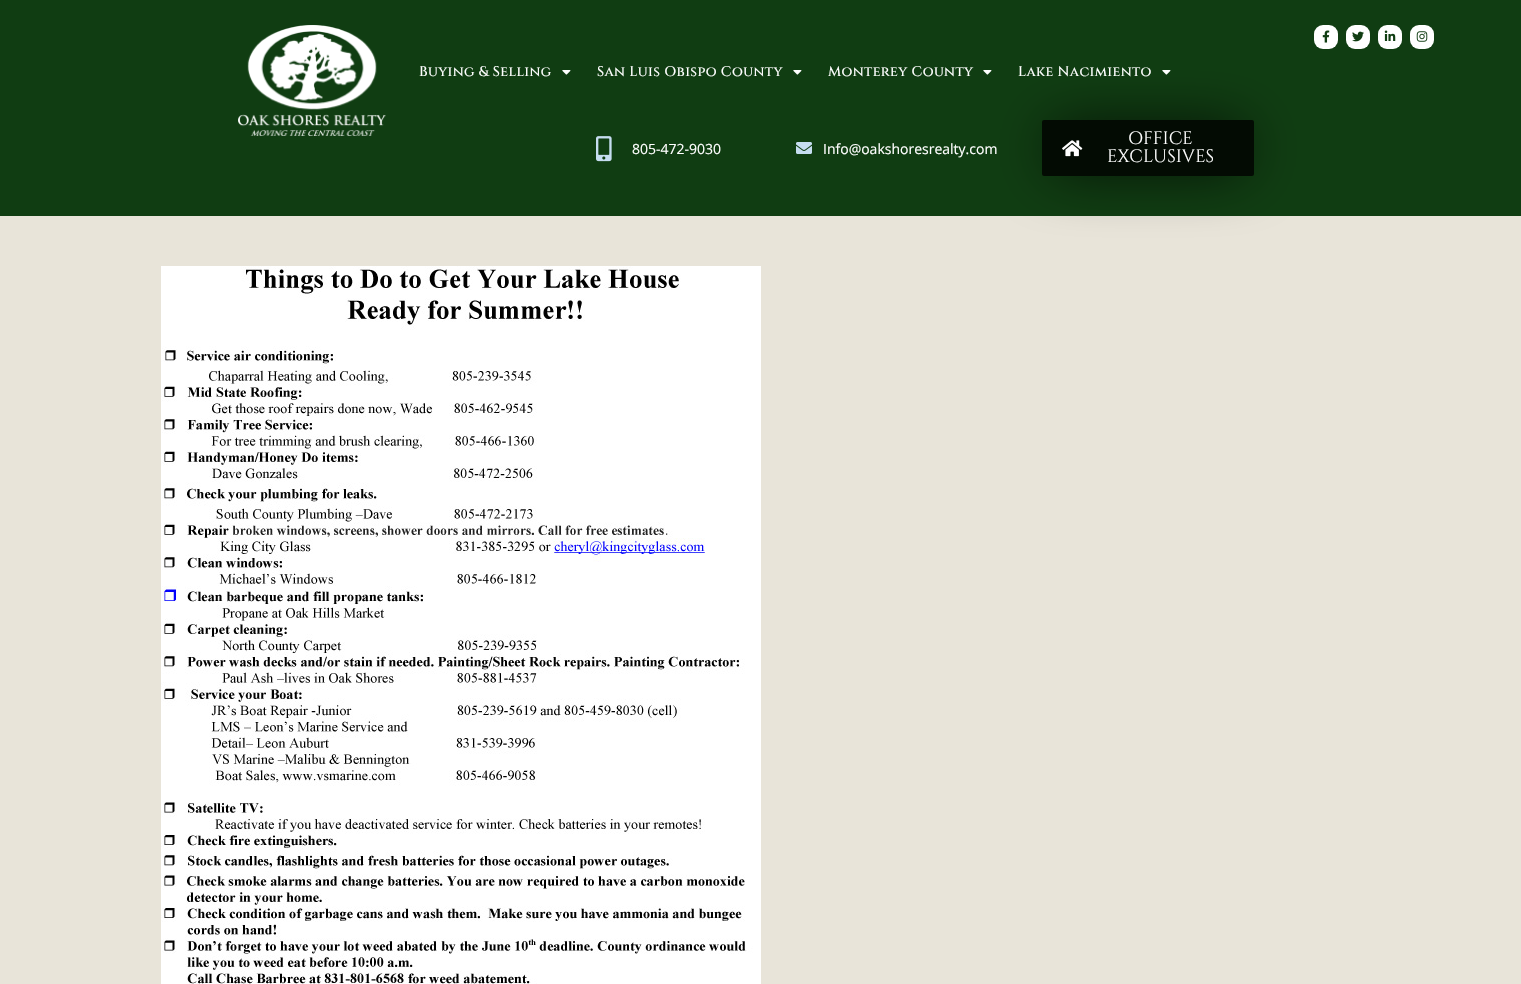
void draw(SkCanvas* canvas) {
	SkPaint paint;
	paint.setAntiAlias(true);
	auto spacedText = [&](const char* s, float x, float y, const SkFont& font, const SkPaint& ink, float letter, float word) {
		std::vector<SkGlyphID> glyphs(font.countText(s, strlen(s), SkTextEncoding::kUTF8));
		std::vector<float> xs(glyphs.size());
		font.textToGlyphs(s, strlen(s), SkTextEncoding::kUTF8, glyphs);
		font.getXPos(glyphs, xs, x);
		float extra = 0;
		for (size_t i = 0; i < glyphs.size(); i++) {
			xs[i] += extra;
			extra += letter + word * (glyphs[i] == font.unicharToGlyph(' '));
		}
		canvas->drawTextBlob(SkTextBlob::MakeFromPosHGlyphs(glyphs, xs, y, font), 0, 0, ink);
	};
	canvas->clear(0xffe8e4d9);
	paint.setColor(0xff103d12);
	canvas->drawRect(SkRect::MakeXYWH(0, 0, 1521, 216), paint);
	canvas->drawImageRect(SkImages::DeferredFromEncodedData(SkData::MakeFromFileName("img1.png")), SkRect::MakeXYWH(238, 25, 148, 111), SkSamplingOptions());
	paint.setColor(0xffffffff);
	canvas->drawRoundRect(SkRect::MakeXYWH(1314, 25, 24, 24), 9, 9, paint);
	canvas->drawImageRect(SkImages::DeferredFromEncodedData(SkData::MakeFromFileName("img2.png")), SkRect::MakeXYWH(1322, 30, 8, 13), SkSamplingOptions());
	canvas->drawRoundRect(SkRect::MakeXYWH(1346, 25, 24, 24), 9, 9, paint);
	canvas->drawImageRect(SkImages::DeferredFromEncodedData(SkData::MakeFromFileName("img3.png")), SkRect::MakeXYWH(1352, 31, 12, 11), SkSamplingOptions());
	canvas->drawRoundRect(SkRect::MakeXYWH(1378, 25, 24, 24), 9, 9, paint);
	canvas->drawImageRect(SkImages::DeferredFromEncodedData(SkData::MakeFromFileName("img4.png")), SkRect::MakeXYWH(1384, 30, 12, 11), SkSamplingOptions());
	canvas->drawRoundRect(SkRect::MakeXYWH(1410, 25, 24, 24), 9, 9, paint);
	canvas->drawImageRect(SkImages::DeferredFromEncodedData(SkData::MakeFromFileName("img5.png")), SkRect::MakeXYWH(1416, 31, 12, 11), SkSamplingOptions());
	SkFont f1(fontMgr->matchFamilyStyle("Cinzel", SkFontStyle(500, SkFontStyle::kNormal_Width, SkFontStyle::kUpright_Slant)), 14);
	f1.setSubpixel(true);
	spacedText("Buying & Selling", 419, 76, f1, paint, 0.4, 0);
	canvas->drawImageRect(SkImages::DeferredFromEncodedData(SkData::MakeFromFileName("img6.png")), SkRect::MakeXYWH(562, 70, 9, 5), SkSamplingOptions());
	spacedText("San Luis Obispo County", 597, 76, f1, paint, 0.4, 0);
	canvas->drawImageRect(SkImages::DeferredFromEncodedData(SkData::MakeFromFileName("img6.png")), SkRect::MakeXYWH(793, 70, 9, 5), SkSamplingOptions());
	paint.setColor(0xff000000);
	paint.setMaskFilter(SkMaskFilter::MakeBlur(kNormal_SkBlurStyle, 30));
	canvas->drawRect(SkRect::MakeXYWH(1052, 130, 192, 36), paint);
	paint.setMaskFilter(nullptr);
	paint.setColor(0xffffffff);
	spacedText("Monterey County", 828, 76, f1, paint, 0.4, 0);
	canvas->drawImageRect(SkImages::DeferredFromEncodedData(SkData::MakeFromFileName("img7.png")), SkRect::MakeXYWH(983, 70, 9, 5), SkSamplingOptions());
	spacedText("Lake Nacimiento", 1018, 76, f1, paint, 0.4, 0);
	canvas->drawImageRect(SkImages::DeferredFromEncodedData(SkData::MakeFromFileName("img8.png")), SkRect::MakeXYWH(1162, 70, 9, 5), SkSamplingOptions());
	canvas->drawImageRect(SkImages::DeferredFromEncodedData(SkData::MakeFromFileName("img9.png")), SkRect::MakeXYWH(596, 136, 16, 26), SkSamplingOptions());
	SkFont f2(fontMgr->matchFamilyStyle("Open Sans", SkFontStyle::Normal()), 14);
	f2.setSubpixel(true);
	canvas->drawString("805-472-9030", 632, 154, f2, paint);
	canvas->drawImageRect(SkImages::DeferredFromEncodedData(SkData::MakeFromFileName("img10.png")), SkRect::MakeXYWH(796, 142, 16, 12), SkSamplingOptions());
	canvas->drawString("Info@oakshoresrealty.com", 823, 154, f2, paint);
	paint.setColor(0xff030b03);
	canvas->drawRoundRect(SkRect::MakeXYWH(1042, 120, 212, 56), 2, 2, paint);
	canvas->drawImageRect(SkImages::DeferredFromEncodedData(SkData::MakeFromFileName("img11.png")), SkRect::MakeXYWH(1062, 140, 21, 17), SkSamplingOptions());
	SkFont f3(fontMgr->matchFamilyStyle("Cinzel", SkFontStyle::Normal()), 18);
	f3.setSubpixel(true);
	paint.setColor(0xffffffff);
	canvas->drawString("OFFICE", 1128, 144, f3, paint);
	canvas->drawString("EXCLUSIVES", 1107, 162, f3, paint);
	canvas->drawImageRect(SkImages::DeferredFromEncodedData(SkData::MakeFromFileName("img12.png")), SkRect::MakeXYWH(161, 266, 600, 718), SkSamplingOptions());
}
